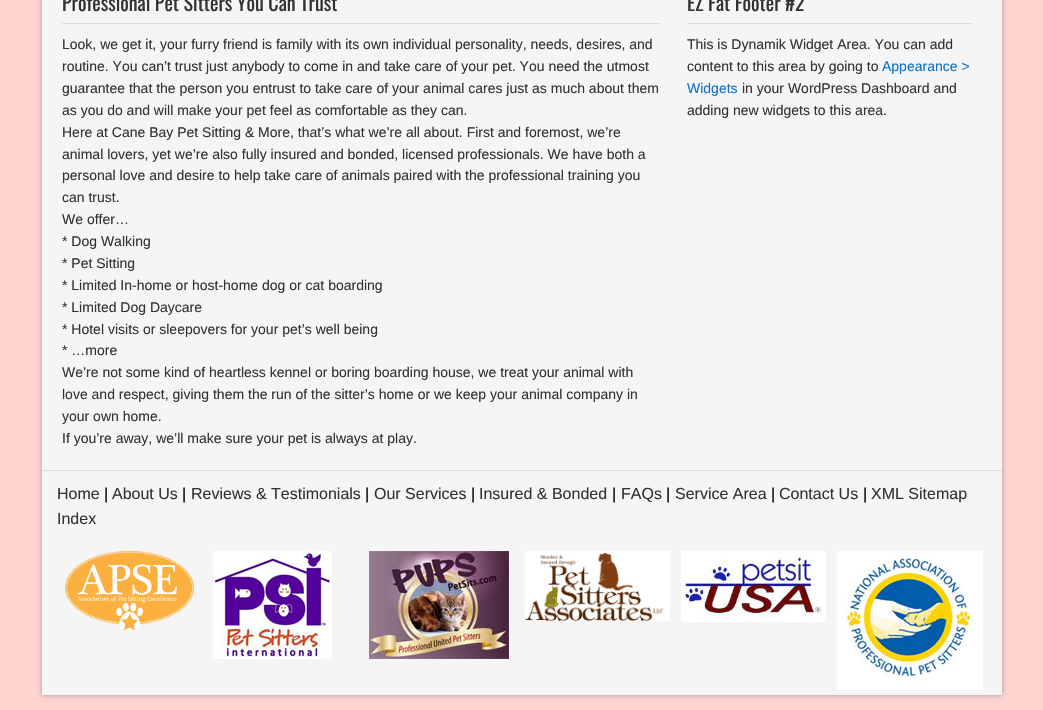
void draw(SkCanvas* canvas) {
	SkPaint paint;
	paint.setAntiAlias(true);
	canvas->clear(0xffffd4d1);
	paint.setColor(0xff999999);
	paint.setMaskFilter(SkMaskFilter::MakeBlur(kNormal_SkBlurStyle, 2.5));
	canvas->drawRect(SkRect::MakeXYWH(42, -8, 960, 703), paint);
	paint.setMaskFilter(nullptr);
	paint.setColor(0xfff5f5f5);
	canvas->drawRect(SkRect::MakeXYWH(42, 0, 960, 470), paint);
	paint.setColor(0xffdddddd);
	canvas->drawRect(SkRect::MakeXYWH(62, 23, 598, 1), paint);
	SkFont f1(fontMgr->matchFamilyStyle("Oswald", SkFontStyle::Normal()), 20);
	f1.setSubpixel(true);
	paint.setColor(0xff333333);
	canvas->drawString("Professional Pet Sitters You Can Trust", 62, 11, f1, paint);
	SkFont f2(fontMgr->matchFamilyStyle("Liberation Sans", SkFontStyle::Normal()), 14);
	f2.setSubpixel(true);
	canvas->drawString("Look, we get it, your furry friend is family with its own individual personality, needs, desires, and", 62, 49, f2, paint);
	canvas->drawString("routine. You can’t trust just anybody to come in and take care of your pet. You need the utmost", 62, 71, f2, paint);
	canvas->drawString("guarantee that the person you entrust to take care of your animal cares just as much about them", 62, 93, f2, paint);
	canvas->drawString("as you do and will make your pet feel as comfortable as they can.", 62, 115, f2, paint);
	canvas->drawString("Here at Cane Bay Pet Sitting & More, that’s what we’re all about. First and foremost, we’re", 62, 137, f2, paint);
	canvas->drawString("animal lovers, yet we’re also fully insured and bonded, licensed professionals. We have both a", 62, 159, f2, paint);
	canvas->drawString("personal love and desire to help take care of animals paired with the professional training you", 62, 180, f2, paint);
	canvas->drawString("can trust.", 62, 202, f2, paint);
	canvas->drawString("We offer…", 62, 224, f2, paint);
	canvas->drawString("* Dog Walking", 62, 246, f2, paint);
	canvas->drawString("* Pet Sitting", 62, 268, f2, paint);
	canvas->drawString("* Limited In-home or host-home dog or cat boarding", 62, 290, f2, paint);
	canvas->drawString("* Limited Dog Daycare", 62, 312, f2, paint);
	canvas->drawString("* Hotel visits or sleepovers for your pet’s well being", 62, 334, f2, paint);
	canvas->drawString("* …more", 62, 355, f2, paint);
	canvas->drawString("We’re not some kind of heartless kennel or boring boarding house, we treat your animal with", 62, 377, f2, paint);
	canvas->drawString("love and respect, giving them the run of the sitter’s home or we keep your animal company in", 62, 399, f2, paint);
	canvas->drawString("your own home.", 62, 421, f2, paint);
	canvas->drawString("If you’re away, we’ll make sure your pet is always at play.", 62, 443, f2, paint);
	paint.setColor(0xffdddddd);
	canvas->drawRect(SkRect::MakeXYWH(687, 23, 285, 1), paint);
	paint.setColor(0xff333333);
	canvas->drawString("EZ Fat Footer #2", 687, 11, f1, paint);
	canvas->drawString("This is Dynamik Widget Area. You can add", 687, 49, f2, paint);
	canvas->drawString("content to this area by going to", 687, 71, f2, paint);
	paint.setColor(0xff0d72c7);
	canvas->drawString("Appearance >", 882, 71, f2, paint);
	canvas->drawString("Widgets", 687, 93, f2, paint);
	paint.setColor(0xff333333);
	canvas->drawString("in your WordPress Dashboard and", 742, 93, f2, paint);
	canvas->drawString("adding new widgets to this area.", 687, 115, f2, paint);
	paint.setColor(0xfff5f5f5);
	canvas->drawRect(SkRect::MakeXYWH(42, 471, 960, 224), paint);
	paint.setColor(0xffdddddd);
	canvas->drawRect(SkRect::MakeXYWH(42, 470, 960, 1), paint);
	SkFont f3(fontMgr->matchFamilyStyle("Liberation Sans", SkFontStyle::Normal()), 16);
	f3.setSubpixel(true);
	paint.setColor(0xff333333);
	canvas->drawString("Home", 57, 499, f3, paint);
	paint.setColor(0xff000000);
	canvas->drawString("|", 104, 499, f3, paint);
	paint.setColor(0xff333333);
	canvas->drawString("About Us", 112, 499, f3, paint);
	paint.setColor(0xff000000);
	canvas->drawString("|", 182, 499, f3, paint);
	paint.setColor(0xff333333);
	canvas->drawString("Reviews & Testimonials", 191, 499, f3, paint);
	paint.setColor(0xff000000);
	canvas->drawString("|", 365, 499, f3, paint);
	paint.setColor(0xff333333);
	canvas->drawString("Our Services", 374, 499, f3, paint);
	paint.setColor(0xff000000);
	canvas->drawString("|", 471, 499, f3, paint);
	paint.setColor(0xff333333);
	canvas->drawString("Insured & Bonded", 479, 499, f3, paint);
	paint.setColor(0xff000000);
	canvas->drawString("|", 612, 499, f3, paint);
	paint.setColor(0xff333333);
	canvas->drawString("FAQs", 621, 499, f3, paint);
	paint.setColor(0xff000000);
	canvas->drawString("|", 666, 499, f3, paint);
	paint.setColor(0xff333333);
	canvas->drawString("Service Area", 675, 499, f3, paint);
	paint.setColor(0xff000000);
	canvas->drawString("|", 771, 499, f3, paint);
	paint.setColor(0xff333333);
	canvas->drawString("Contact Us", 779, 499, f3, paint);
	paint.setColor(0xff000000);
	canvas->drawString("|", 863, 499, f3, paint);
	paint.setColor(0xff333333);
	canvas->drawString("XML Sitemap", 871, 499, f3, paint);
	canvas->drawString("Index", 57, 524, f3, paint);
	canvas->drawImageRect(SkImages::DeferredFromEncodedData(SkData::MakeFromFileName("img1.png")), SkRect::MakeXYWH(65, 551, 129, 79), SkSamplingOptions());
	canvas->drawImageRect(SkImages::DeferredFromEncodedData(SkData::MakeFromFileName("img2.png")), SkRect::MakeXYWH(213, 551, 119, 108), SkSamplingOptions());
	canvas->drawImageRect(SkImages::DeferredFromEncodedData(SkData::MakeFromFileName("img3.png")), SkRect::MakeXYWH(369, 551, 140, 108), SkSamplingOptions());
	canvas->drawImageRect(SkImages::DeferredFromEncodedData(SkData::MakeFromFileName("img4.png")), SkRect::MakeXYWH(525, 551, 145, 70), SkSamplingOptions());
	canvas->drawImageRect(SkImages::DeferredFromEncodedData(SkData::MakeFromFileName("img5.png")), SkRect::MakeXYWH(681, 551, 145, 71), SkSamplingOptions());
	canvas->drawImageRect(SkImages::DeferredFromEncodedData(SkData::MakeFromFileName("img6.png")), SkRect::MakeXYWH(837, 551, 146, 139), SkSamplingOptions());
}
